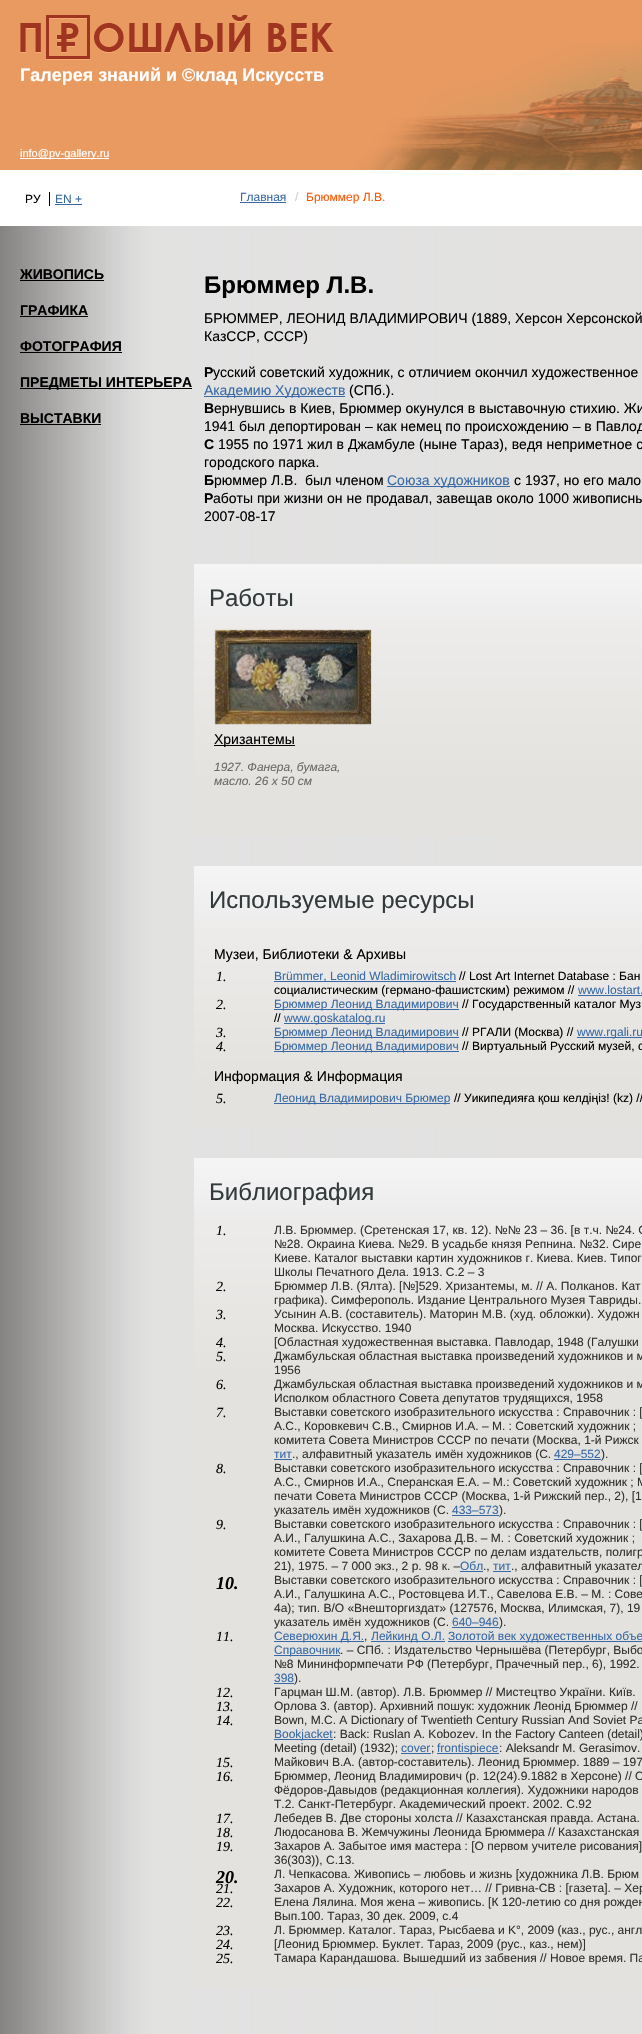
void draw(SkCanvas* canvas) {
	SkPaint paint;
	paint.setAntiAlias(true);
	canvas->clear(0xffffffff);
	paint.setColor(0xffe99a61);
	canvas->drawRect(SkRect::MakeXYWH(0, 0, 642, 170), paint);
	canvas->drawImageRect(SkImages::DeferredFromEncodedData(SkData::MakeFromFileName("img1.png")), SkRect::MakeXYWH(356, 42, 286, 128), SkSamplingOptions());
	canvas->drawImageRect(SkImages::DeferredFromEncodedData(SkData::MakeFromFileName("img2.png")), SkRect::MakeXYWH(20, 15, 314, 45), SkSamplingOptions());
	SkFont f1(fontMgr->matchFamilyStyle("Liberation Sans", SkFontStyle::Bold()), 18);
	f1.setSubpixel(true);
	paint.setColor(0xffffffff);
	canvas->drawString("Галерея знаний и ©клад Искусств", 20, 81, f1, paint);
	canvas->drawRect(SkRect::MakeXYWH(20, 158, 89, 1), paint);
	SkFont f2(fontMgr->matchFamilyStyle("Liberation Sans", SkFontStyle::Normal()), 11);
	f2.setSubpixel(true);
	canvas->drawString("info@pv-gallery.ru", 20, 157, f2, paint);
	SkFont f3(fontMgr->matchFamilyStyle("Liberation Sans", SkFontStyle::Normal()), 12);
	f3.setSubpixel(true);
	paint.setColor(0xff000000);
	canvas->drawString("РУ", 25, 203, f3, paint);
	canvas->drawRect(SkRect::MakeXYWH(49, 192, 1, 14), paint);
	paint.setColor(0xff3869a5);
	canvas->drawString("EN +", 55, 203, f3, paint);
	canvas->drawRect(SkRect::MakeXYWH(55, 204, 27, 1), paint);
	canvas->drawString("Главная", 240, 201, f3, paint);
	canvas->drawRect(SkRect::MakeXYWH(240, 202, 46, 1), paint);
	paint.setColor(0xffcccccc);
	canvas->drawString("/", 295, 201, f3, paint);
	paint.setColor(0xffff5400);
	canvas->drawString("Брюммер Л.В.", 306, 201, f3, paint);
	paint.setColor(0xffe3e2e0);
	canvas->drawRect(SkRect::MakeXYWH(502, 226, 140, 1808), paint);
	canvas->drawImageRect(SkImages::DeferredFromEncodedData(SkData::MakeFromFileName("img3.png")), SkRect::MakeXYWH(0, 226, 502, 1808), SkSamplingOptions());
	SkFont f4(fontMgr->matchFamilyStyle("Liberation Sans", SkFontStyle::Bold()), 14);
	f4.setSubpixel(true);
	paint.setColor(0xff000000);
	canvas->drawString("ЖИВОПИСЬ", 20, 279, f4, paint);
	canvas->drawRect(SkRect::MakeXYWH(20, 280, 84, 1), paint);
	canvas->drawString("ГРАФИКА", 20, 315, f4, paint);
	canvas->drawRect(SkRect::MakeXYWH(20, 316, 68, 1), paint);
	canvas->drawString("ФОТОГРАФИЯ", 20, 351, f4, paint);
	canvas->drawRect(SkRect::MakeXYWH(20, 352, 102, 1), paint);
	canvas->drawRect(SkRect::MakeXYWH(20, 388, 172, 1), paint);
	canvas->drawString("ПРЕДМЕТЫ ИНТЕРЬЕРА", 20, 387, f4, paint);
	canvas->drawString("ВЫСТАВКИ", 20, 423, f4, paint);
	canvas->drawRect(SkRect::MakeXYWH(20, 424, 81, 1), paint);
	SkFont f5(fontMgr->matchFamilyStyle("Liberation Sans", SkFontStyle::Bold()), 24);
	f5.setSubpixel(true);
	canvas->drawString("Брюммер Л.В.", 204, 293, f5, paint);
	SkFont f6(fontMgr->matchFamilyStyle("Liberation Sans", SkFontStyle::Normal()), 14);
	f6.setSubpixel(true);
	canvas->drawString("БРЮММЕР, ЛЕОНИД ВЛАДИМИРОВИЧ (1889, Херсон Херсонской", 204, 323, f6, paint);
	canvas->drawString("КазССР, СССР)", 204, 341, f6, paint);
	canvas->drawString("Р", 204, 377, f4, paint);
	canvas->drawString("усский советский художник, с отличием окончил художественное", 213, 377, f6, paint);
	paint.setColor(0xff3869a5);
	canvas->drawRect(SkRect::MakeXYWH(204, 396, 141, 1), paint);
	canvas->drawString("Академию Художеств", 204, 395, f6, paint);
	paint.setColor(0xff000000);
	canvas->drawString("(СПб.).", 349, 395, f6, paint);
	canvas->drawString("В", 204, 413, f4, paint);
	canvas->drawString("ернувшись в Киев, Брюммер окунулся в выставочную стихию. Жи", 214, 413, f6, paint);
	canvas->drawString("1941 был депортирован – как немец по происхождению – в Павлод", 204, 431, f6, paint);
	canvas->drawString("С", 204, 449, f4, paint);
	canvas->drawString("1955 по 1971 жил в Джамбуле (ныне Тараз), ведя неприметное с", 218, 449, f6, paint);
	canvas->drawString("городского парка.", 204, 467, f6, paint);
	canvas->drawString("Б", 204, 485, f4, paint);
	canvas->drawString("рюммер Л.В.  был членом", 214, 485, f6, paint);
	paint.setColor(0xff3869a5);
	canvas->drawRect(SkRect::MakeXYWH(387, 486, 123, 1), paint);
	canvas->drawString("Союза художников", 387, 485, f6, paint);
	paint.setColor(0xff000000);
	canvas->drawString("с 1937, но его мало", 514, 485, f6, paint);
	canvas->drawString("Р", 204, 503, f4, paint);
	canvas->drawString("аботы при жизни он не продавал, завещав около 1000 живописны", 213, 503, f6, paint);
	canvas->drawString("2007-08-17", 204, 521, f6, paint);
	{
		const SkColor colors[] = {0xfff5f5f5, 0xffededed};
		const float stops[] = {0, 1};
		const SkPoint ends[] = {{575, 564}, {575, 619}};
		paint.setShader(SkGradientShader::MakeLinear(ends, colors, stops, 2, SkTileMode::kClamp));
		paint.setAlpha(255);
	}
	canvas->drawRect(SkRect::MakeXYWH(194, 564, 448, 55), paint);
	SkFont f7(fontMgr->matchFamilyStyle("Liberation Sans", SkFontStyle::Normal()), 24);
	f7.setSubpixel(true);
	paint.setShader(nullptr);
	paint.setColor(0xff333a3c);
	canvas->drawString("Работы", 209, 606, f7, paint);
	{
		const SkColor colors[] = {0xffedeceb, 0xffe3e2de};
		const float stops[] = {0, 0.76};
		const SkPoint ends[] = {{575, 619}, {575, 836}};
		paint.setShader(SkGradientShader::MakeLinear(ends, colors, stops, 2, SkTileMode::kClamp));
		paint.setAlpha(255);
	}
	canvas->drawRect(SkRect::MakeXYWH(194, 619, 448, 217), paint);
	canvas->drawImageRect(SkImages::DeferredFromEncodedData(SkData::MakeFromFileName("img4.png")), SkRect::MakeXYWH(214, 629, 158, 96), SkSamplingOptions());
	paint.setShader(nullptr);
	paint.setColor(0xff000000);
	canvas->drawRect(SkRect::MakeXYWH(214, 745, 81, 1), paint);
	canvas->drawString("Хризантемы", 214, 744, f6, paint);
	SkFont f8(fontMgr->matchFamilyStyle("Liberation Sans", SkFontStyle::Italic()), 12);
	f8.setSubpixel(true);
	paint.setColor(0xff696969);
	canvas->drawString("1927. Фанера, бумага,", 214, 771, f8, paint);
	canvas->drawString("масло. 26 x 50 см", 214, 785, f8, paint);
	{
		const SkColor colors[] = {0xfff5f5f5, 0xffededed};
		const float stops[] = {0, 1};
		const SkPoint ends[] = {{575, 866}, {575, 921}};
		paint.setShader(SkGradientShader::MakeLinear(ends, colors, stops, 2, SkTileMode::kClamp));
		paint.setAlpha(255);
	}
	canvas->drawRect(SkRect::MakeXYWH(194, 866, 448, 55), paint);
	paint.setShader(nullptr);
	paint.setColor(0xff333a3c);
	canvas->drawString("Используемые ресурсы", 209, 908, f7, paint);
	{
		const SkColor colors[] = {0xffedeceb, 0xffe3e2de};
		const float stops[] = {0, 0.8};
		const SkPoint ends[] = {{575, 921}, {575, 1128}};
		paint.setShader(SkGradientShader::MakeLinear(ends, colors, stops, 2, SkTileMode::kClamp));
		paint.setAlpha(255);
	}
	canvas->drawRect(SkRect::MakeXYWH(194, 921, 448, 207), paint);
	paint.setShader(nullptr);
	paint.setColor(0xff000000);
	canvas->drawString("Музеи, Библиотеки & Архивы", 214, 959, f6, paint);
	SkFont f9(fontMgr->matchFamilyStyle("Liberation Serif", SkFontStyle::Italic()), 14);
	f9.setSubpixel(true);
	canvas->drawString("1.", 216, 981, f9, paint);
	paint.setColor(0xff3869a5);
	canvas->drawRect(SkRect::MakeXYWH(274, 981, 182, 1), paint);
	canvas->drawString("Brümmer, Leonid Wladimirowitsch", 274, 980, f3, paint);
	paint.setColor(0xff000000);
	canvas->drawString("// Lost Art Internet Database : Бан", 459, 980, f3, paint);
	canvas->drawString("социалистическим (германо-фашистским) режимом //", 274, 994, f3, paint);
	paint.setColor(0xff3869a5);
	canvas->drawString("www.lostart.", 578, 994, f3, paint);
	canvas->drawRect(SkRect::MakeXYWH(578, 995, 64, 1), paint);
	paint.setColor(0xff000000);
	canvas->drawString("2.", 216, 1009, f9, paint);
	paint.setColor(0xff3869a5);
	canvas->drawRect(SkRect::MakeXYWH(274, 1009, 185, 1), paint);
	canvas->drawString("Брюммер Леонид Владимирович", 274, 1008, f3, paint);
	paint.setColor(0xff000000);
	canvas->drawString("// Государственный каталог Муз", 462, 1008, f3, paint);
	canvas->drawString("//", 274, 1022, f3, paint);
	paint.setColor(0xff3869a5);
	canvas->drawRect(SkRect::MakeXYWH(284, 1023, 101, 1), paint);
	canvas->drawString("www.goskatalog.ru", 284, 1022, f3, paint);
	paint.setColor(0xff000000);
	canvas->drawString("3.", 216, 1037, f9, paint);
	paint.setColor(0xff3869a5);
	canvas->drawRect(SkRect::MakeXYWH(274, 1037, 185, 1), paint);
	canvas->drawString("Брюммер Леонид Владимирович", 274, 1036, f3, paint);
	paint.setColor(0xff000000);
	canvas->drawString("// РГАЛИ (Москва) //", 462, 1036, f3, paint);
	paint.setColor(0xff3869a5);
	canvas->drawRect(SkRect::MakeXYWH(577, 1037, 65, 1), paint);
	canvas->drawString("www.rgali.ru", 577, 1036, f3, paint);
	paint.setColor(0xff000000);
	canvas->drawString("4.", 216, 1051, f9, paint);
	paint.setColor(0xff3869a5);
	canvas->drawRect(SkRect::MakeXYWH(274, 1051, 185, 1), paint);
	canvas->drawString("Брюммер Леонид Владимирович", 274, 1050, f3, paint);
	paint.setColor(0xff000000);
	canvas->drawString("// Виртуальный Русский музей, с", 462, 1050, f3, paint);
	canvas->drawString("Информация & Информация", 214, 1081, f6, paint);
	canvas->drawString("5.", 216, 1103, f9, paint);
	paint.setColor(0xff3869a5);
	canvas->drawRect(SkRect::MakeXYWH(274, 1103, 176, 1), paint);
	canvas->drawString("Леонид Владимирович Брюмер", 274, 1102, f3, paint);
	paint.setColor(0xff000000);
	canvas->drawString("// Уикипедияға қош келдіңіз! (kz) //", 454, 1102, f3, paint);
	{
		const SkColor colors[] = {0xfff5f5f5, 0xffededed};
		const float stops[] = {0, 1};
		const SkPoint ends[] = {{575, 1158}, {575, 1213}};
		paint.setShader(SkGradientShader::MakeLinear(ends, colors, stops, 2, SkTileMode::kClamp));
		paint.setAlpha(255);
	}
	canvas->drawRect(SkRect::MakeXYWH(194, 1158, 448, 55), paint);
	paint.setShader(nullptr);
	paint.setColor(0xff333a3c);
	canvas->drawString("Библиография", 209, 1200, f7, paint);
	{
		const SkColor colors[] = {0xffedeceb, 0xffe3e2de};
		const float stops[] = {0, 0.21};
		const SkPoint ends[] = {{575, 1213}, {575, 1988}};
		paint.setShader(SkGradientShader::MakeLinear(ends, colors, stops, 2, SkTileMode::kClamp));
		paint.setAlpha(255);
	}
	canvas->drawRect(SkRect::MakeXYWH(194, 1213, 448, 775), paint);
	paint.setShader(nullptr);
	paint.setColor(0xff000000);
	canvas->drawString("1.", 216, 1235, f9, paint);
	paint.setColor(0xff323130);
	canvas->drawString("Л.В. Брюммер. (Сретенская 17, кв. 12). №№ 23 – 36. [в т.ч. №24. С", 274, 1234, f3, paint);
	canvas->drawString("№28. Окраина Киева. №29. В усадьбе князя Репнина. №32. Сире", 274, 1248, f3, paint);
	canvas->drawString("Киеве. Каталог выставки картин художников г. Киева. Киев. Типог", 274, 1262, f3, paint);
	canvas->drawString("Школы Печатного Дела. 1913. С.2 – 3", 274, 1276, f3, paint);
	paint.setColor(0xff000000);
	canvas->drawString("2.", 216, 1291, f9, paint);
	paint.setColor(0xff323130);
	canvas->drawString("Брюммер Л.В. (Ялта). [№]529. Хризантемы, м. // А. Полканов. Кат", 274, 1290, f3, paint);
	canvas->drawString("графика). Симферополь. Издание Центрального Музея Тавриды.", 274, 1304, f3, paint);
	paint.setColor(0xff000000);
	canvas->drawString("3.", 216, 1319, f9, paint);
	paint.setColor(0xff323130);
	canvas->drawString("Усынин А.В. (составитель). Маторин М.В. (худ. обложки). Художн", 274, 1318, f3, paint);
	canvas->drawString("Москва. Искусство. 1940", 274, 1332, f3, paint);
	paint.setColor(0xff000000);
	canvas->drawString("4.", 216, 1347, f9, paint);
	paint.setColor(0xff323130);
	canvas->drawString("[Областная художественная выставка. Павлодар, 1948 (Галушки", 274, 1346, f3, paint);
	paint.setColor(0xff000000);
	canvas->drawString("5.", 216, 1361, f9, paint);
	paint.setColor(0xff323130);
	canvas->drawString("Джамбульская областная выставка произведений художников и м", 274, 1360, f3, paint);
	canvas->drawString("1956", 274, 1374, f3, paint);
	paint.setColor(0xff000000);
	canvas->drawString("6.", 216, 1389, f9, paint);
	paint.setColor(0xff323130);
	canvas->drawString("Джамбульская областная выставка произведений художников и м", 274, 1388, f3, paint);
	canvas->drawString("Исполком областного Совета депутатов трудящихся, 1958", 274, 1402, f3, paint);
	paint.setColor(0xff000000);
	canvas->drawString("7.", 216, 1417, f9, paint);
	paint.setColor(0xff323130);
	canvas->drawString("Выставки советского изобразительного искусства : Справочник : [", 274, 1416, f3, paint);
	canvas->drawString("А.С., Коровкевич С.В., Смирнов И.А. – М. : Советский художник ;", 274, 1430, f3, paint);
	canvas->drawString("комитета Совета Министров СССР по печати (Москва, 1-й Рижск", 274, 1444, f3, paint);
	paint.setColor(0xff3869a5);
	canvas->drawString("тит", 274, 1458, f3, paint);
	paint.setColor(0xff323130);
	canvas->drawString("., алфавитный указатель имён художников (С.", 292, 1458, f3, paint);
	paint.setColor(0xff3869a5);
	canvas->drawRect(SkRect::MakeXYWH(274, 1459, 18, 1), paint);
	canvas->drawString("429–552", 554, 1458, f3, paint);
	paint.setColor(0xff323130);
	canvas->drawString(").", 601, 1458, f3, paint);
	paint.setColor(0xff3869a5);
	canvas->drawRect(SkRect::MakeXYWH(554, 1459, 47, 1), paint);
	paint.setColor(0xff000000);
	canvas->drawString("8.", 216, 1473, f9, paint);
	paint.setColor(0xff323130);
	canvas->drawString("Выставки советского изобразительного искусства : Справочник : [", 274, 1472, f3, paint);
	canvas->drawString("А.С., Смирнов И.А., Сперанская Е.А. – М.: Советский художник ; М", 274, 1486, f3, paint);
	canvas->drawString("печати Совета Министров СССР (Москва, 1-й Рижский пер., 2), [1", 274, 1500, f3, paint);
	canvas->drawString("указатель имён художников (С.", 274, 1514, f3, paint);
	paint.setColor(0xff3869a5);
	canvas->drawString("433–573", 452, 1514, f3, paint);
	paint.setColor(0xff323130);
	canvas->drawString(").", 499, 1514, f3, paint);
	paint.setColor(0xff3869a5);
	canvas->drawRect(SkRect::MakeXYWH(452, 1515, 47, 1), paint);
	paint.setColor(0xff000000);
	canvas->drawString("9.", 216, 1529, f9, paint);
	paint.setColor(0xff323130);
	canvas->drawString("Выставки советского изобразительного искусства : Справочник : [", 274, 1528, f3, paint);
	canvas->drawString("А.И., Галушкина А.С., Захарова Д.В. – М. : Советский художник ;", 274, 1542, f3, paint);
	canvas->drawString("комитете Совета Министров СССР по делам издательств, полигр", 274, 1556, f3, paint);
	canvas->drawString("21), 1975. – 7 000 экз., 2 р. 98 к. –", 274, 1570, f3, paint);
	paint.setColor(0xff3869a5);
	canvas->drawString("Обл", 460, 1570, f3, paint);
	paint.setColor(0xff323130);
	canvas->drawString(".,", 483, 1570, f3, paint);
	paint.setColor(0xff3869a5);
	canvas->drawRect(SkRect::MakeXYWH(460, 1571, 23, 1), paint);
	canvas->drawRect(SkRect::MakeXYWH(493, 1571, 18, 1), paint);
	canvas->drawString("тит", 493, 1570, f3, paint);
	paint.setColor(0xff323130);
	canvas->drawString("., алфавитный указател", 511, 1570, f3, paint);
	SkFont f10(fontMgr->matchFamilyStyle("Liberation Serif", SkFontStyle::BoldItalic()), 18);
	f10.setSubpixel(true);
	paint.setColor(0xff000000);
	canvas->drawString("10.", 216, 1589, f10, paint);
	paint.setColor(0xff323130);
	canvas->drawString("Выставки советского изобразительного искусства : Справочник : [", 274, 1584, f3, paint);
	canvas->drawString("А.И., Галушкина А.С., Ростовцева И.Т., Савелова Е.В. – М. : Сове", 274, 1598, f3, paint);
	canvas->drawString("4а); тип. В/О «Внешторгиздат» (127576, Москва, Илимская, 7), 19", 274, 1612, f3, paint);
	canvas->drawString("указатель имён художников (С.", 274, 1626, f3, paint);
	paint.setColor(0xff3869a5);
	canvas->drawString("640–946", 452, 1626, f3, paint);
	paint.setColor(0xff323130);
	canvas->drawString(").", 499, 1626, f3, paint);
	paint.setColor(0xff3869a5);
	canvas->drawRect(SkRect::MakeXYWH(452, 1627, 47, 1), paint);
	paint.setColor(0xff000000);
	canvas->drawString("11.", 216, 1641, f9, paint);
	paint.setColor(0xff3869a5);
	canvas->drawRect(SkRect::MakeXYWH(274, 1641, 90, 1), paint);
	canvas->drawString("Северюхин Д.Я.", 274, 1640, f3, paint);
	paint.setColor(0xff323130);
	canvas->drawString(",", 364, 1640, f3, paint);
	paint.setColor(0xff3869a5);
	canvas->drawRect(SkRect::MakeXYWH(371, 1641, 74, 1), paint);
	canvas->drawString("Лейкинд О.Л.", 371, 1640, f3, paint);
	canvas->drawRect(SkRect::MakeXYWH(448, 1641, 194, 1), paint);
	canvas->drawString("Золотой век художественных объе", 448, 1640, f3, paint);
	canvas->drawRect(SkRect::MakeXYWH(274, 1655, 66, 1), paint);
	canvas->drawString("Справочник", 274, 1654, f3, paint);
	paint.setColor(0xff323130);
	canvas->drawString(". – СПб. : Издательство Чернышёва (Петербург, Выбо", 340, 1654, f3, paint);
	canvas->drawString("№8 Мининформпечати РФ (Петербург, Прачечный пер., 6), 1992.", 274, 1668, f3, paint);
	paint.setColor(0xff3869a5);
	canvas->drawString("398", 274, 1682, f3, paint);
	paint.setColor(0xff323130);
	canvas->drawString(").", 294, 1682, f3, paint);
	paint.setColor(0xff3869a5);
	canvas->drawRect(SkRect::MakeXYWH(274, 1683, 20, 1), paint);
	paint.setColor(0xff000000);
	canvas->drawString("12.", 216, 1697, f9, paint);
	paint.setColor(0xff323130);
	canvas->drawString("Гарцман Ш.М. (автор). Л.В. Брюммер // Мистецтво України. Київ.", 274, 1696, f3, paint);
	paint.setColor(0xff000000);
	canvas->drawString("13.", 216, 1711, f9, paint);
	paint.setColor(0xff323130);
	canvas->drawString("Орлова 3. (автор). Архивний пошук: художник Леонiд Брюммер //", 274, 1710, f3, paint);
	paint.setColor(0xff000000);
	canvas->drawString("14.", 216, 1725, f9, paint);
	paint.setColor(0xff323130);
	canvas->drawString("Bown, M.C. A Dictionary of Twentieth Century Russian And Soviet Pa", 274, 1724, f3, paint);
	paint.setColor(0xff3869a5);
	canvas->drawRect(SkRect::MakeXYWH(274, 1739, 59, 1), paint);
	canvas->drawString("Bookjacket", 274, 1738, f3, paint);
	paint.setColor(0xff323130);
	canvas->drawString(": Back: Ruslan A. Kobozev. In the Factory Canteen (detail)", 333, 1738, f3, paint);
	canvas->drawString("Meeting (detail) (1932);", 274, 1752, f3, paint);
	paint.setColor(0xff3869a5);
	canvas->drawString("cover", 401, 1752, f3, paint);
	paint.setColor(0xff323130);
	canvas->drawString(";", 431, 1752, f3, paint);
	paint.setColor(0xff3869a5);
	canvas->drawRect(SkRect::MakeXYWH(401, 1753, 30, 1), paint);
	canvas->drawRect(SkRect::MakeXYWH(437, 1753, 62, 1), paint);
	canvas->drawString("frontispiece", 437, 1752, f3, paint);
	paint.setColor(0xff323130);
	canvas->drawString(": Aleksandr M. Gerasimov.", 499, 1752, f3, paint);
	paint.setColor(0xff000000);
	canvas->drawString("15.", 216, 1767, f9, paint);
	paint.setColor(0xff323130);
	canvas->drawString("Майкович В.А. (автор-составитель). Леонид Брюммер. 1889 – 197", 274, 1766, f3, paint);
	paint.setColor(0xff000000);
	canvas->drawString("16.", 216, 1781, f9, paint);
	paint.setColor(0xff323130);
	canvas->drawString("Брюммер, Леонид Владимирович (р. 12(24).9.1882 в Херсоне) // О", 274, 1780, f3, paint);
	canvas->drawString("Фёдоров-Давыдов (редакционная коллегия). Художники народов", 274, 1794, f3, paint);
	canvas->drawString("Т.2. Санкт-Петербург. Академический проект. 2002. С.92", 274, 1808, f3, paint);
	paint.setColor(0xff000000);
	canvas->drawString("17.", 216, 1823, f9, paint);
	paint.setColor(0xff323130);
	canvas->drawString("Лебедев В. Две стороны холста // Казахстанская правда. Астана.", 274, 1822, f3, paint);
	paint.setColor(0xff000000);
	canvas->drawString("18.", 216, 1837, f9, paint);
	paint.setColor(0xff323130);
	canvas->drawString("Людосанова В. Жемчужины Леонида Брюммера // Казахстанская", 274, 1836, f3, paint);
	paint.setColor(0xff000000);
	canvas->drawString("19.", 216, 1851, f9, paint);
	paint.setColor(0xff323130);
	canvas->drawString("Захаров А. Забытое имя мастера : [О первом учителе рисования]", 274, 1850, f3, paint);
	canvas->drawString("36(303)), С.13.", 274, 1864, f3, paint);
	paint.setColor(0xff000000);
	canvas->drawString("20.", 216, 1883, f10, paint);
	paint.setColor(0xff323130);
	canvas->drawString("Л. Чепкасова. Живопись – любовь и жизнь [художника Л.В. Брюм", 274, 1878, f3, paint);
	paint.setColor(0xff000000);
	canvas->drawString("21.", 216, 1893, f9, paint);
	paint.setColor(0xff323130);
	canvas->drawString("Захаров А. Художник, которого нет… // Гривна-СВ : [газета]. – Хер", 274, 1892, f3, paint);
	paint.setColor(0xff000000);
	canvas->drawString("22.", 216, 1907, f9, paint);
	paint.setColor(0xff323130);
	canvas->drawString("Елена Лялина. Моя жена – живопись. [К 120-летию со дня рожден", 274, 1906, f3, paint);
	canvas->drawString("Вып.100. Тараз, 30 дек. 2009, с.4", 274, 1920, f3, paint);
	paint.setColor(0xff000000);
	canvas->drawString("23.", 216, 1935, f9, paint);
	paint.setColor(0xff323130);
	canvas->drawString("Л. Брюммер. Каталог. Тараз, Рысбаева и K°, 2009 (каз., рус., англ", 274, 1934, f3, paint);
	paint.setColor(0xff000000);
	canvas->drawString("24.", 216, 1949, f9, paint);
	paint.setColor(0xff323130);
	canvas->drawString("[Леонид Брюммер. Буклет. Тараз, 2009 (рус., каз., нем)]", 274, 1948, f3, paint);
	paint.setColor(0xff000000);
	canvas->drawString("25.", 216, 1963, f9, paint);
	paint.setColor(0xff323130);
	canvas->drawString("Тамара Карандашова. Вышедший из забвения // Новое время. Па", 274, 1962, f3, paint);
}
